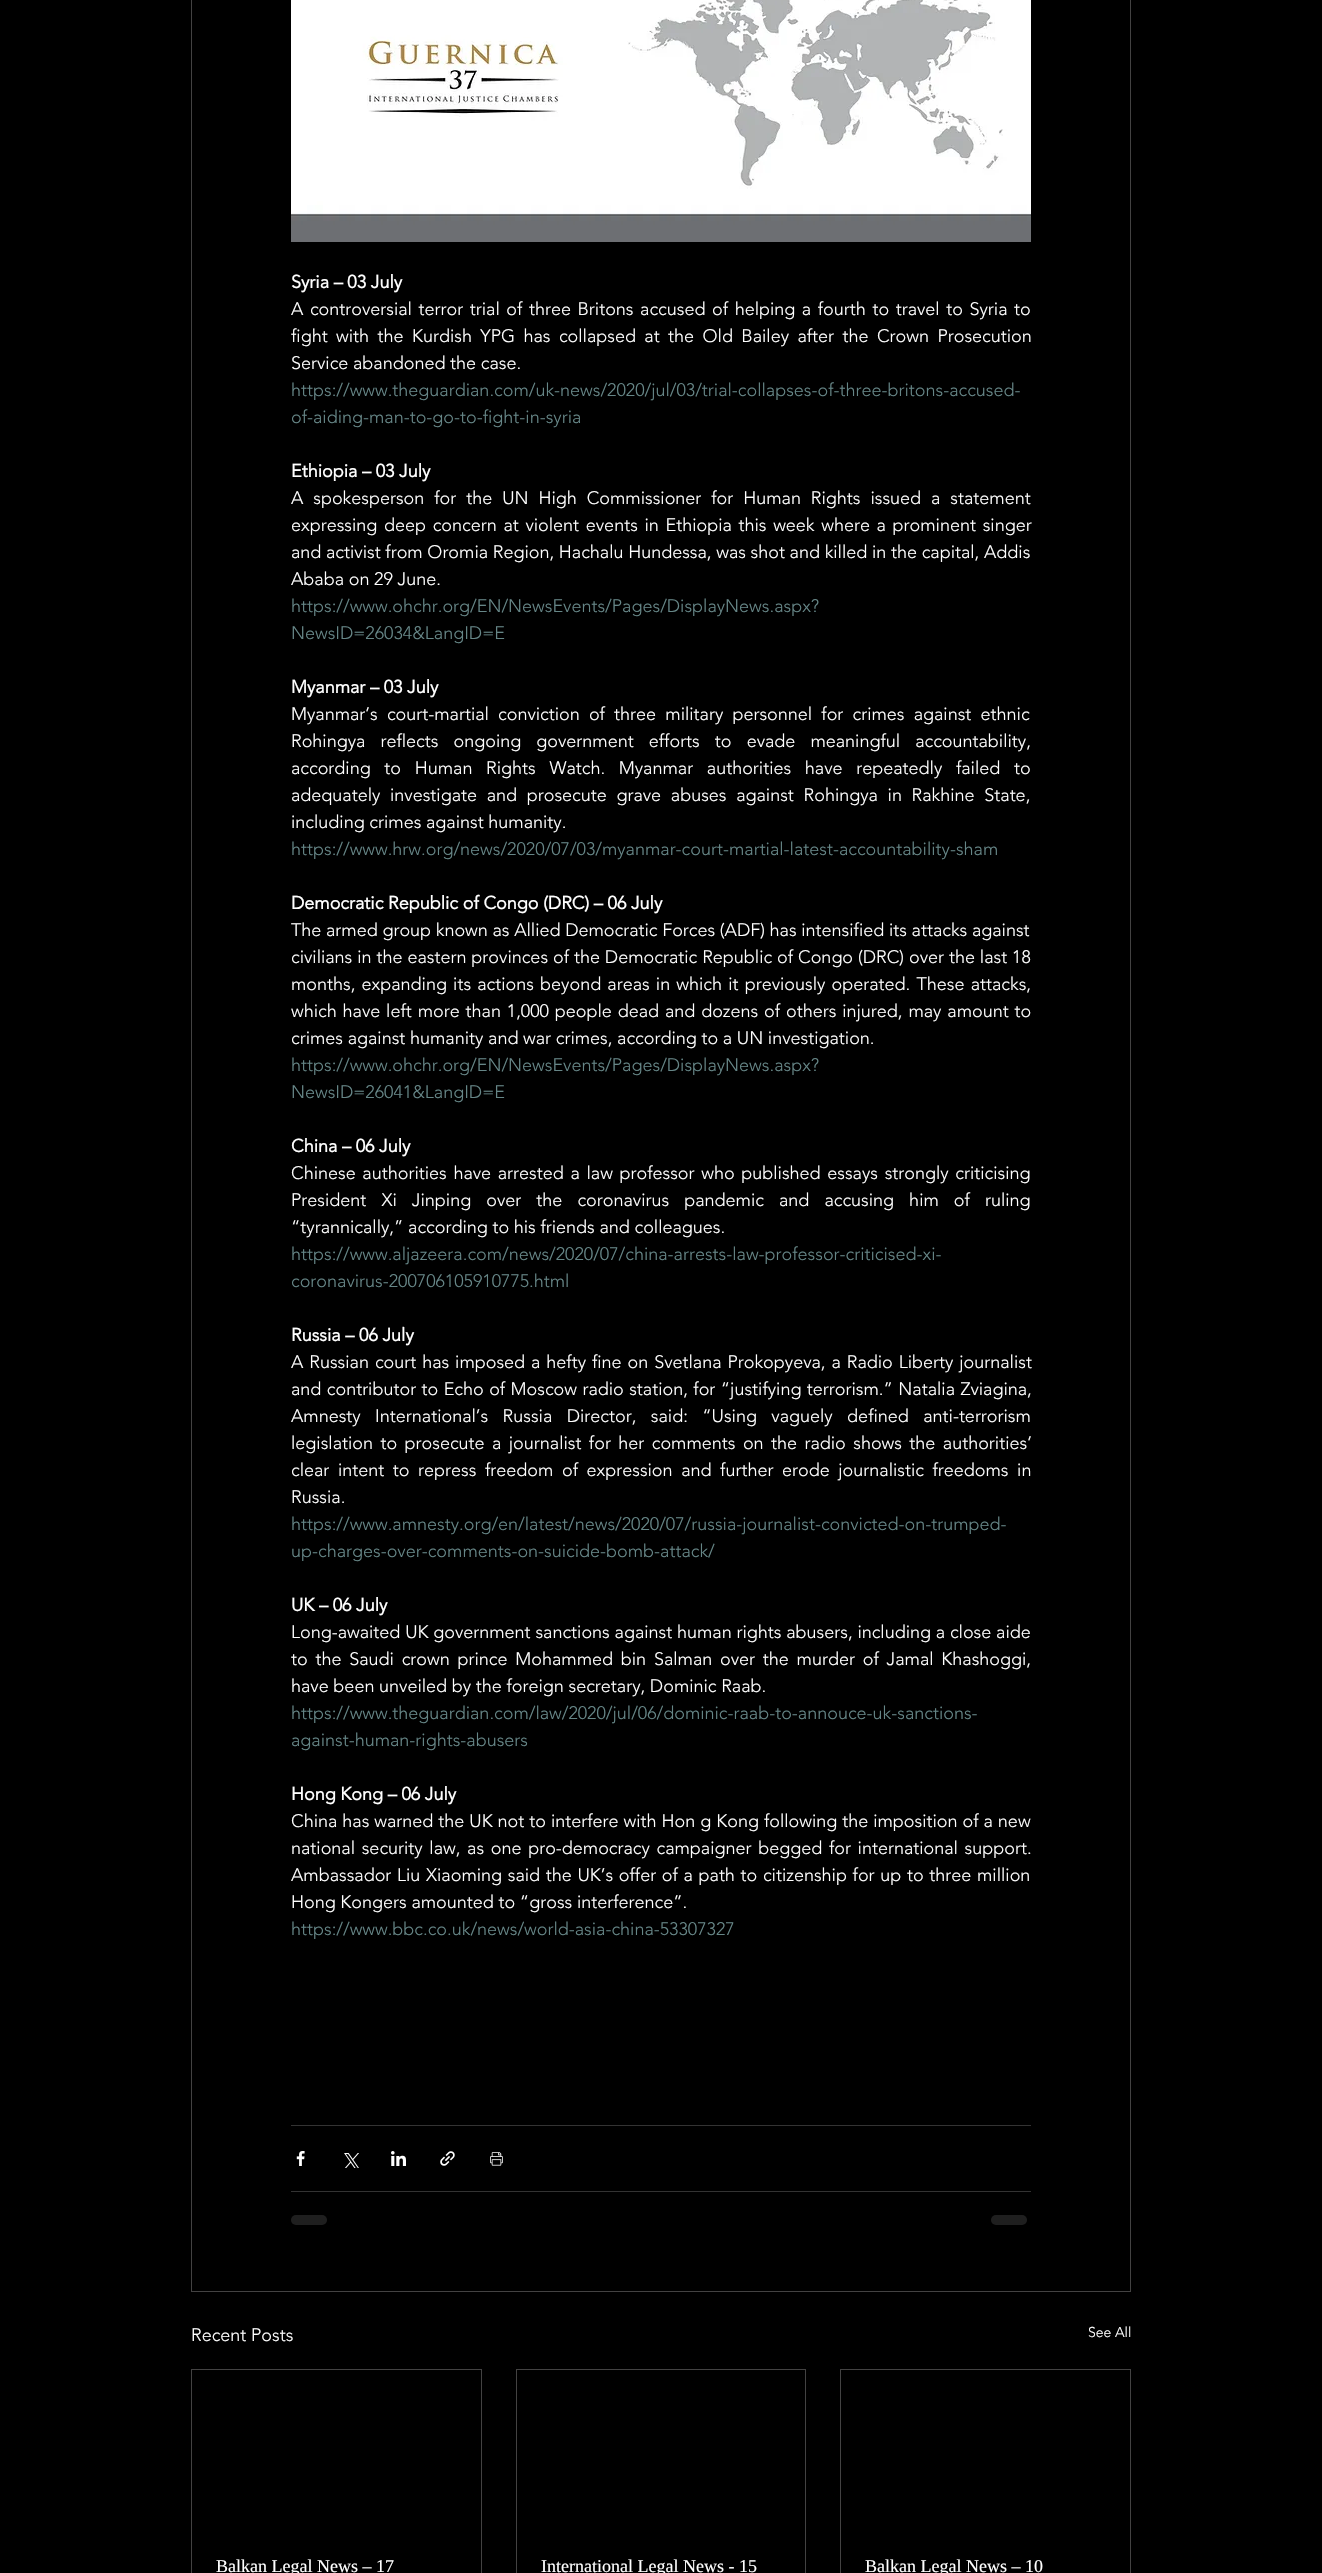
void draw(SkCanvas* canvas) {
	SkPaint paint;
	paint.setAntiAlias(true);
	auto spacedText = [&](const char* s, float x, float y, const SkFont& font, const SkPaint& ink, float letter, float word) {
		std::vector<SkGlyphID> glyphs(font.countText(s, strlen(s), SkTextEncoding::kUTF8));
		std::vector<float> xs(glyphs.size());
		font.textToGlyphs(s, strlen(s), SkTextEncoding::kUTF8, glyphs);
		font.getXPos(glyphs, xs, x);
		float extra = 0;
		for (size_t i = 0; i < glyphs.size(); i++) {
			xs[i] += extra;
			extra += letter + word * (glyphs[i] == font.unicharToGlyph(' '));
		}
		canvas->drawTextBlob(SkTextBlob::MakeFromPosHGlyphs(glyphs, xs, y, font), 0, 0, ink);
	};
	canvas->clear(0xff000000);
	paint.setStroke(true);
	paint.setStrokeWidth(1);
	paint.setColor(0xff434242);
	canvas->drawRect(SkRect::MakeXYWH(191.5, -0.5, 939, 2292), paint);
	canvas->drawImageRect(SkImages::DeferredFromEncodedData(SkData::MakeFromFileName("img1.png")), SkRect::MakeXYWH(291, 0, 740, 242), SkSamplingOptions());
	SkFont f1(fontMgr->matchFamilyStyle("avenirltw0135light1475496", SkFontStyle::Bold()), 18);
	f1.setSubpixel(true);
	paint.setStroke(false);
	paint.setColor(0xffffffff);
	canvas->drawString("Syria – 03 July", 291, 288, f1, paint);
	SkFont f2(fontMgr->matchFamilyStyle("avenirltw0135light1475496", SkFontStyle(300, SkFontStyle::kNormal_Width, SkFontStyle::kUpright_Slant)), 18);
	f2.setSubpixel(true);
	spacedText("A controversial terror trial of three Britons accused of helping a fourth to travel to Syria to", 291, 315, f2, paint, 0, 1.9);
	spacedText("fight with the Kurdish YPG has collapsed at the Old Bailey after the Crown Prosecution", 291, 342, f2, paint, 0, 3.75);
	canvas->drawString("Service abandoned the case.", 291, 369, f2, paint);
	paint.setColor(0xff668687);
	canvas->drawString("https://www.theguardian.com/uk-news/2020/jul/03/trial-collapses-of-three-britons-accused-", 291, 396, f2, paint);
	canvas->drawString("of-aiding-man-to-go-to-fight-in-syria", 291, 423, f2, paint);
	paint.setColor(0xffffffff);
	canvas->drawString("Ethiopia – 03 July", 291, 477, f1, paint);
	spacedText("A spokesperson for the UN High Commissioner for Human Rights issued a statement", 291, 504, f2, paint, 0, 5.25);
	spacedText("expressing deep concern at violent events in Ethiopia this week where a prominent singer", 291, 531, f2, paint, 0, 2);
	canvas->drawString("and activist from Oromia Region, Hachalu Hundessa, was shot and killed in the capital, Addis", 291, 558, f2, paint);
	canvas->drawString("Ababa on 29 June.", 291, 585, f2, paint);
	paint.setColor(0xff668687);
	canvas->drawString("https://www.ohchr.org/EN/NewsEvents/Pages/DisplayNews.aspx?", 291, 612, f2, paint);
	canvas->drawString("NewsID=26034&LangID=E", 291, 639, f2, paint);
	paint.setColor(0xffffffff);
	canvas->drawString("Myanmar – 03 July", 291, 693, f1, paint);
	spacedText("Myanmar’s court-martial conviction of three military personnel for crimes against ethnic", 291, 720, f2, paint, 0, 4.5);
	spacedText("Rohingya reflects ongoing government efforts to evade meaningful accountability,", 291, 747, f2, paint, 0, 10.4);
	spacedText("according to Human Rights Watch. Myanmar authorities have repeatedly failed to", 291, 774, f2, paint, 0, 9);
	spacedText("adequately investigate and prosecute grave abuses against Rohingya in Rakhine State,", 291, 801, f2, paint, 0, 5);
	canvas->drawString("including crimes against humanity.", 291, 828, f2, paint);
	paint.setColor(0xff668687);
	canvas->drawString("https://www.hrw.org/news/2020/07/03/myanmar-court-martial-latest-accountability-sham", 291, 855, f2, paint);
	paint.setColor(0xffffffff);
	canvas->drawString("Democratic Republic of Congo (DRC) – 06 July", 291, 909, f1, paint);
	canvas->drawString("The armed group known as Allied Democratic Forces (ADF) has intensified its attacks against", 291, 936, f2, paint);
	spacedText("civilians in the eastern provinces of the Democratic Republic of Congo (DRC) over the last 18", 291, 963, f2, paint, 0, 0.25);
	spacedText("months, expanding its actions beyond areas in which it previously operated. These attacks,", 291, 990, f2, paint, 0, 1.5);
	spacedText("which have left more than 1,000 people dead and dozens of others injured, may amount to", 291, 1017, f2, paint, 0, 1.2);
	canvas->drawString("crimes against humanity and war crimes, according to a UN investigation.", 291, 1044, f2, paint);
	paint.setColor(0xff668687);
	canvas->drawString("https://www.ohchr.org/EN/NewsEvents/Pages/DisplayNews.aspx?", 291, 1071, f2, paint);
	canvas->drawString("NewsID=26041&LangID=E", 291, 1098, f2, paint);
	paint.setColor(0xffffffff);
	canvas->drawString("China – 06 July", 291, 1152, f1, paint);
	spacedText("Chinese authorities have arrested a law professor who published essays strongly criticising", 291, 1179, f2, paint, 0, 2);
	spacedText("President Xi Jinping over the coronavirus pandemic and accusing him of ruling", 291, 1206, f2, paint, 0, 10.4);
	canvas->drawString("“tyrannically,” according to his friends and colleagues.", 291, 1233, f2, paint);
	paint.setColor(0xff668687);
	canvas->drawString("https://www.aljazeera.com/news/2020/07/china-arrests-law-professor-criticised-xi-", 291, 1260, f2, paint);
	canvas->drawString("coronavirus-200706105910775.html", 291, 1287, f2, paint);
	paint.setColor(0xffffffff);
	canvas->drawString("Russia – 06 July", 291, 1341, f1, paint);
	spacedText("A Russian court has imposed a hefty fine on Svetlana Prokopyeva, a Radio Liberty journalist", 291, 1368, f2, paint, 0, 1.25);
	spacedText("and contributor to Echo of Moscow radio station, for “justifying terrorism.” Natalia Zviagina,", 291, 1395, f2, paint, 0, 0.75);
	spacedText("Amnesty International’s Russia Director, said: “Using vaguely defined anti-terrorism", 291, 1422, f2, paint, 0, 9.75);
	spacedText("legislation to prosecute a journalist for her comments on the radio shows the authorities’", 291, 1449, f2, paint, 0, 2.75);
	spacedText("clear intent to repress freedom of expression and further erode journalistic freedoms in", 291, 1476, f2, paint, 0, 3.9);
	canvas->drawString("Russia.", 291, 1503, f2, paint);
	paint.setColor(0xff668687);
	canvas->drawString("https://www.amnesty.org/en/latest/news/2020/07/russia-journalist-convicted-on-trumped-", 291, 1530, f2, paint);
	canvas->drawString("up-charges-over-comments-on-suicide-bomb-attack/", 291, 1557, f2, paint);
	paint.setColor(0xffffffff);
	canvas->drawString("UK – 06 July", 291, 1611, f1, paint);
	spacedText("Long-awaited UK government sanctions against human rights abusers, including a close aide", 291, 1638, f2, paint, 0, 0.1);
	spacedText("to the Saudi crown prince Mohammed bin Salman over the murder of Jamal Khashoggi,", 291, 1665, f2, paint, 0, 3.1);
	canvas->drawString("have been unveiled by the foreign secretary, Dominic Raab.", 291, 1692, f2, paint);
	paint.setColor(0xff668687);
	canvas->drawString("https://www.theguardian.com/law/2020/jul/06/dominic-raab-to-annouce-uk-sanctions-", 291, 1719, f2, paint);
	canvas->drawString("against-human-rights-abusers", 291, 1746, f2, paint);
	paint.setColor(0xffffffff);
	canvas->drawString("Hong Kong – 06 July", 291, 1800, f1, paint);
	spacedText("China has warned the UK not to interfere with Hon g Kong following the imposition of a new", 291, 1827, f2, paint, 0, 0.3);
	spacedText("national security law, as one pro-democracy campaigner begged for international support.", 291, 1854, f2, paint, 0, 2);
	spacedText("Ambassador Liu Xiaoming said the UK’s offer of a path to citizenship for up to three million", 291, 1881, f2, paint, 0, 1);
	canvas->drawString("Hong Kongers amounted to “gross interference”.", 291, 1908, f2, paint);
	paint.setColor(0xff668687);
	canvas->drawString("https://www.bbc.co.uk/news/world-asia-china-53307327", 291, 1935, f2, paint);
	paint.setColor(0xff333333);
	canvas->drawRect(SkRect::MakeXYWH(291, 2125, 740, 1), paint);
	canvas->drawImageRect(SkImages::DeferredFromEncodedData(SkData::MakeFromFileName("img2.png")), SkRect::MakeXYWH(296, 2151, 9, 15), SkSamplingOptions());
	canvas->drawImageRect(SkImages::DeferredFromEncodedData(SkData::MakeFromFileName("img3.png")), SkRect::MakeXYWH(344, 2153, 15, 15), SkSamplingOptions());
	canvas->drawImageRect(SkImages::DeferredFromEncodedData(SkData::MakeFromFileName("img4.png")), SkRect::MakeXYWH(391, 2151, 15, 15), SkSamplingOptions());
	canvas->drawImageRect(SkImages::DeferredFromEncodedData(SkData::MakeFromFileName("img5.png")), SkRect::MakeXYWH(440, 2151, 15, 15), SkSamplingOptions());
	canvas->drawImageRect(SkImages::DeferredFromEncodedData(SkData::MakeFromFileName("img6.png")), SkRect::MakeXYWH(490, 2152, 13, 14), SkSamplingOptions());
	canvas->drawRect(SkRect::MakeXYWH(291, 2191, 740, 1), paint);
	paint.setColor(0xff1f1f1f);
	canvas->drawRoundRect(SkRect::MakeXYWH(291, 2215, 36, 10), 5, 5, paint);
	canvas->drawRoundRect(SkRect::MakeXYWH(991, 2215, 36, 10), 5, 5, paint);
	paint.setColor(0xffffffff);
	canvas->drawString("Recent Posts", 191, 2341, f2, paint);
	SkFont f3(fontMgr->matchFamilyStyle("avenirltw0135light1475496", SkFontStyle(300, SkFontStyle::kNormal_Width, SkFontStyle::kUpright_Slant)), 14);
	f3.setSubpixel(true);
	canvas->drawString("See All", 1088, 2337, f3, paint);
	paint.setStroke(true);
	paint.setColor(0xff434242);
	canvas->drawRect(SkRect::MakeXYWH(191.5, 2369.5, 290, 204), paint);
	SkFont f4(fontMgr->matchFamilyStyle("Liberation Serif", SkFontStyle::Normal()), 18);
	f4.setSubpixel(true);
	paint.setStroke(false);
	paint.setColor(0xffffffff);
	canvas->drawString("Balkan Legal News – 17", 216, 2572, f4, paint);
	paint.setStroke(true);
	paint.setColor(0xff434242);
	canvas->drawRect(SkRect::MakeXYWH(516.5, 2369.5, 289, 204), paint);
	paint.setStroke(false);
	paint.setColor(0xffffffff);
	canvas->drawString("International Legal News - 15", 541, 2572, f4, paint);
	paint.setStroke(true);
	paint.setColor(0xff434242);
	canvas->drawRect(SkRect::MakeXYWH(840.5, 2369.5, 290, 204), paint);
	paint.setStroke(false);
	paint.setColor(0xffffffff);
	canvas->drawString("Balkan Legal News – 10", 865, 2572, f4, paint);
}
